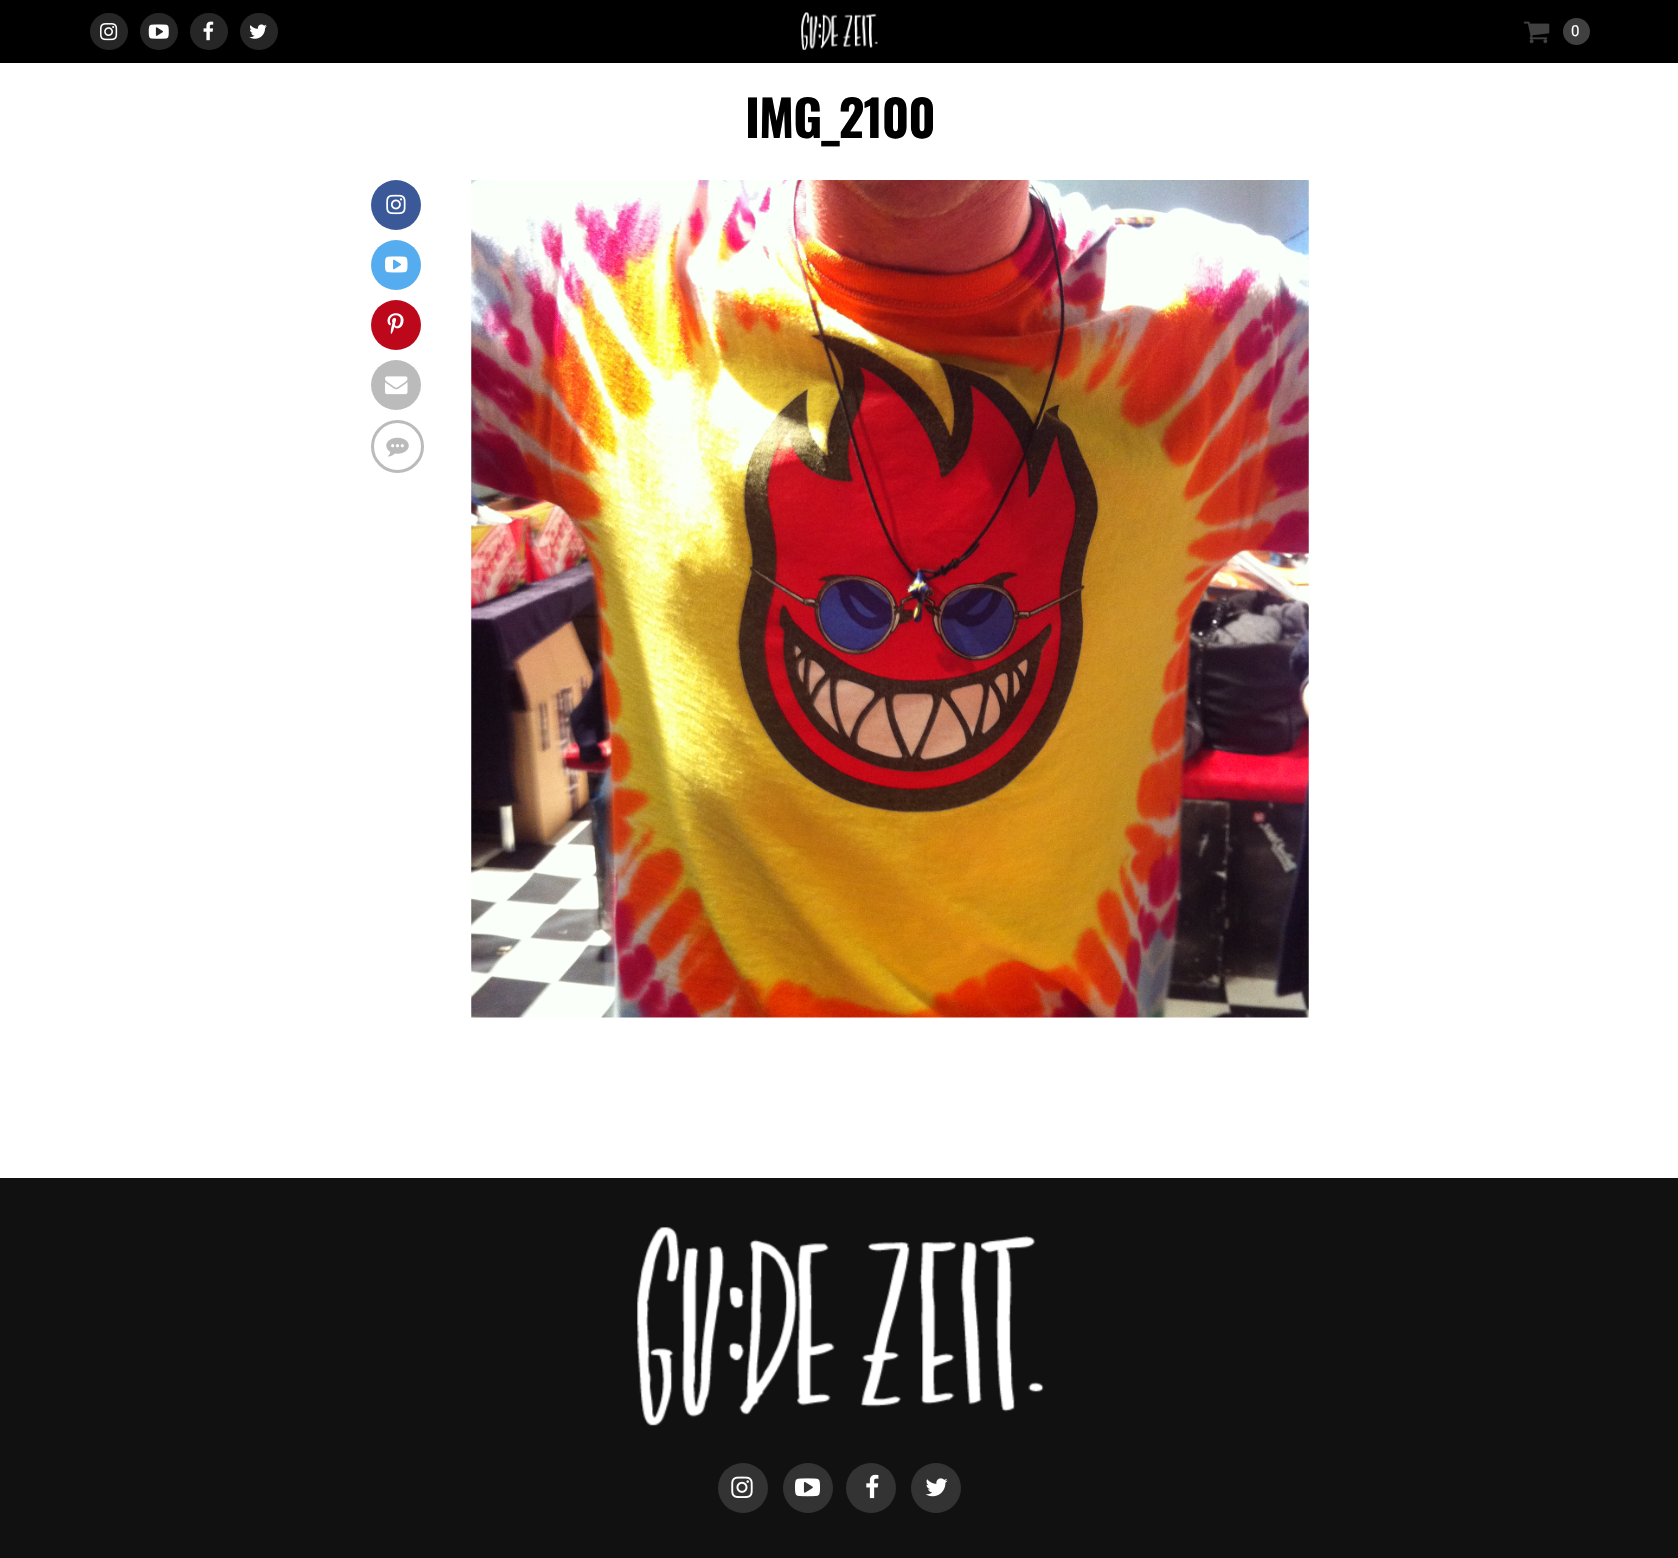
void draw(SkCanvas* canvas) {
	SkPaint paint;
	paint.setAntiAlias(true);
	auto spacedText = [&](const char* s, float x, float y, const SkFont& font, const SkPaint& ink, float letter, float word) {
		std::vector<SkGlyphID> glyphs(font.countText(s, strlen(s), SkTextEncoding::kUTF8));
		std::vector<float> xs(glyphs.size());
		font.textToGlyphs(s, strlen(s), SkTextEncoding::kUTF8, glyphs);
		font.getXPos(glyphs, xs, x);
		float extra = 0;
		for (size_t i = 0; i < glyphs.size(); i++) {
			xs[i] += extra;
			extra += letter + word * (glyphs[i] == font.unicharToGlyph(' '));
		}
		canvas->drawTextBlob(SkTextBlob::MakeFromPosHGlyphs(glyphs, xs, y, font), 0, 0, ink);
	};
	canvas->clear(0xffffffff);
	paint.setColor(0xff000000);
	canvas->drawRect(SkRect::MakeXYWH(0, 0, 1678, 63), paint);
	paint.setColor(0xff262626);
	canvas->drawRoundRect(SkRect::MakeXYWH(90, 13, 38, 37), 18.5, 18.5, paint);
	canvas->drawImageRect(SkImages::DeferredFromEncodedData(SkData::MakeFromFileName("img1.png")), SkRect::MakeXYWH(100, 23, 18, 18), SkSamplingOptions());
	canvas->drawRoundRect(SkRect::MakeXYWH(140, 13, 38, 37), 18.5, 18.5, paint);
	canvas->drawImageRect(SkImages::DeferredFromEncodedData(SkData::MakeFromFileName("img2.png")), SkRect::MakeXYWH(148, 24, 21, 15), SkSamplingOptions());
	canvas->drawRoundRect(SkRect::MakeXYWH(190, 13, 38, 37), 18.5, 18.5, paint);
	canvas->drawImageRect(SkImages::DeferredFromEncodedData(SkData::MakeFromFileName("img3.png")), SkRect::MakeXYWH(203, 21, 11, 20), SkSamplingOptions());
	canvas->drawRoundRect(SkRect::MakeXYWH(240, 13, 38, 37), 18.5, 18.5, paint);
	canvas->drawImageRect(SkImages::DeferredFromEncodedData(SkData::MakeFromFileName("img4.png")), SkRect::MakeXYWH(249, 24, 18, 15), SkSamplingOptions());
	canvas->drawImageRect(SkImages::DeferredFromEncodedData(SkData::MakeFromFileName("img5.png")), SkRect::MakeXYWH(801, 12, 77, 38), SkSamplingOptions());
	canvas->drawImageRect(SkImages::DeferredFromEncodedData(SkData::MakeFromFileName("img6.png")), SkRect::MakeXYWH(1523, 21, 27, 23), SkSamplingOptions());
	paint.setColor(0xff404040);
	canvas->drawCircle(1576.5, 31.5, 13.5, paint);
	SkFont f1(fontMgr->matchFamilyStyle("Roboto", SkFontStyle::Normal()), 15);
	f1.setSubpixel(true);
	paint.setColor(0xffffffff);
	canvas->drawString("0", 1571, 36, f1, paint);
	SkFont f2(fontMgr->matchFamilyStyle("Oswald", SkFontStyle::Bold()), 50);
	f2.setSubpixel(true);
	paint.setColor(0xff000000);
	spacedText("IMG_2100", 745, 138, f2, paint, -1, 0);
	paint.setColor(0xff3b5998);
	canvas->drawCircle(396, 205, 25, paint);
	canvas->drawImageRect(SkImages::DeferredFromEncodedData(SkData::MakeFromFileName("img7.png")), SkRect::MakeXYWH(386, 194, 20, 21), SkSamplingOptions());
	paint.setColor(0xff55acee);
	canvas->drawCircle(396, 265, 25, paint);
	canvas->drawImageRect(SkImages::DeferredFromEncodedData(SkData::MakeFromFileName("img8.png")), SkRect::MakeXYWH(385, 256, 23, 17), SkSamplingOptions());
	paint.setColor(0xffbd081c);
	canvas->drawCircle(396, 325, 25, paint);
	canvas->drawImageRect(SkImages::DeferredFromEncodedData(SkData::MakeFromFileName("img9.png")), SkRect::MakeXYWH(387, 313, 17, 21), SkSamplingOptions());
	paint.setColor(0xffbbbbbb);
	canvas->drawCircle(396, 385, 25, paint);
	canvas->drawImageRect(SkImages::DeferredFromEncodedData(SkData::MakeFromFileName("img10.png")), SkRect::MakeXYWH(385, 376, 23, 19), SkSamplingOptions());
	paint.setStroke(true);
	paint.setStrokeWidth(3);
	canvas->drawCircle(397.5, 446.5, 25, paint);
	canvas->drawImageRect(SkImages::DeferredFromEncodedData(SkData::MakeFromFileName("img11.png")), SkRect::MakeXYWH(386, 437, 23, 20), SkSamplingOptions());
	canvas->drawImageRect(SkImages::DeferredFromEncodedData(SkData::MakeFromFileName("img12.png")), SkRect::MakeXYWH(471, 180, 838, 838), SkSamplingOptions());
	paint.setStroke(false);
	paint.setColor(0xff111111);
	canvas->drawRect(SkRect::MakeXYWH(0, 1178, 1678, 380), paint);
	canvas->drawImageRect(SkImages::DeferredFromEncodedData(SkData::MakeFromFileName("img13.png")), SkRect::MakeXYWH(637, 1227, 407, 199), SkSamplingOptions());
	paint.setColor(0xff333333);
	canvas->drawCircle(743, 1488, 25, paint);
	canvas->drawImageRect(SkImages::DeferredFromEncodedData(SkData::MakeFromFileName("img14.png")), SkRect::MakeXYWH(731, 1476, 22, 22), SkSamplingOptions());
	canvas->drawCircle(808, 1488, 25, paint);
	canvas->drawImageRect(SkImages::DeferredFromEncodedData(SkData::MakeFromFileName("img15.png")), SkRect::MakeXYWH(795, 1478, 25, 19), SkSamplingOptions());
	canvas->drawCircle(871, 1488, 25, paint);
	canvas->drawImageRect(SkImages::DeferredFromEncodedData(SkData::MakeFromFileName("img16.png")), SkRect::MakeXYWH(866, 1474, 13, 25), SkSamplingOptions());
	canvas->drawCircle(936, 1488, 25, paint);
	canvas->drawImageRect(SkImages::DeferredFromEncodedData(SkData::MakeFromFileName("img17.png")), SkRect::MakeXYWH(925, 1478, 23, 19), SkSamplingOptions());
}
